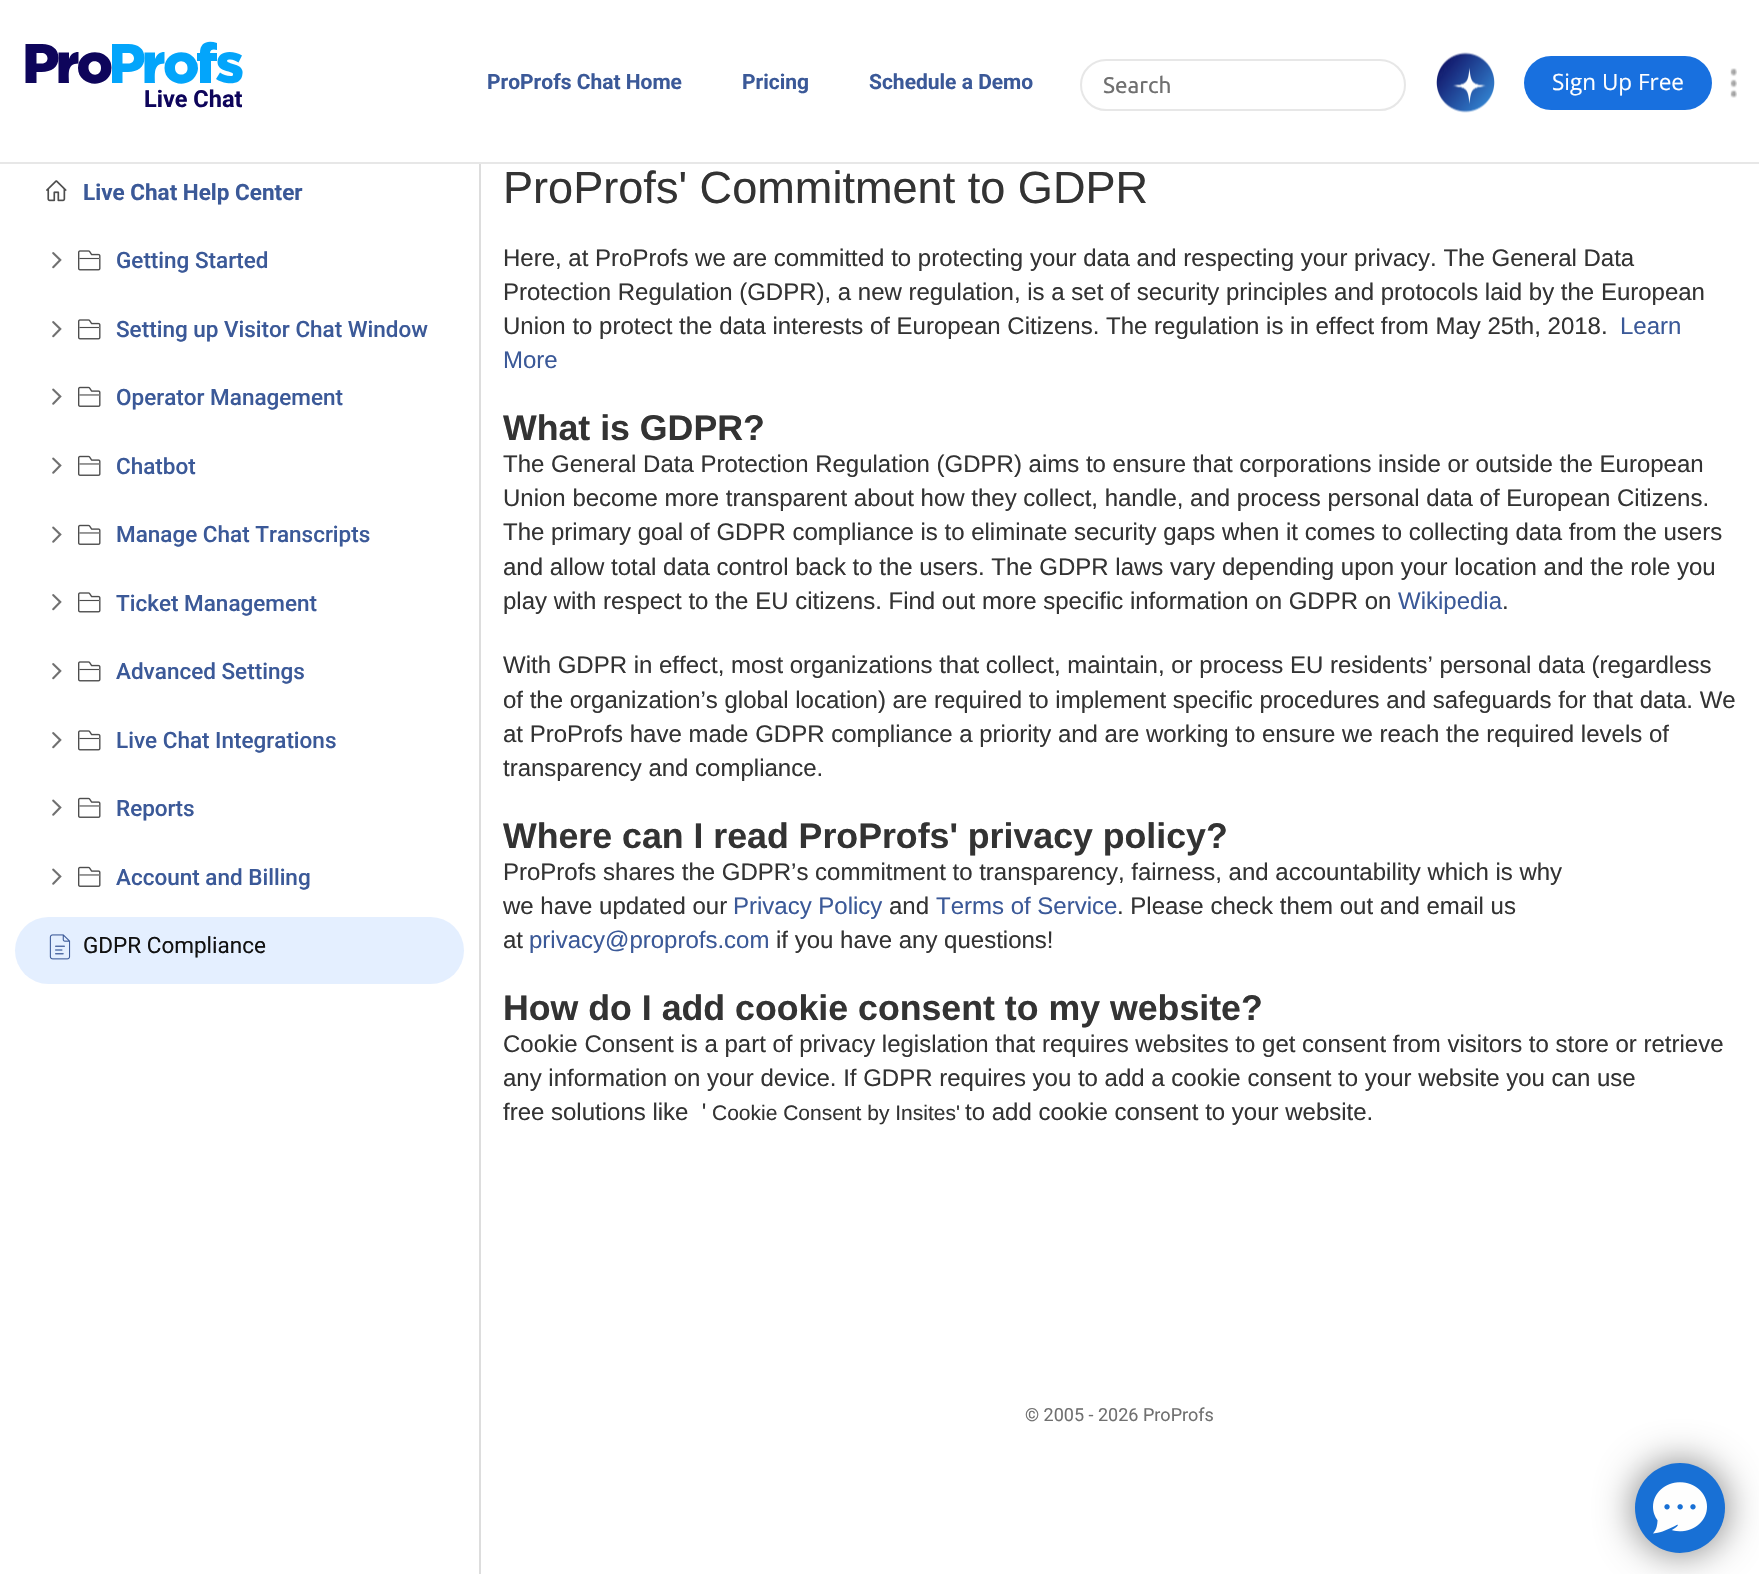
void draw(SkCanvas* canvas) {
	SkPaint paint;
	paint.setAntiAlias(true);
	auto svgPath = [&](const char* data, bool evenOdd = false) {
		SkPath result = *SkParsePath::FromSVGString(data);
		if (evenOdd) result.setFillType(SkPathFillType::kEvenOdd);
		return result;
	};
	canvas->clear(0xffffffff);
	paint.setColor(0xffdddddd);
	canvas->drawRect(SkRect::MakeXYWH(479, 162, 2, 1412), paint);
	paint.setColor(0xffe7e7e7);
	canvas->drawRect(SkRect::MakeXYWH(0, 162, 1759, 2), paint);
	SkFont f1(fontMgr->matchFamilyStyle("Roboto", SkFontStyle::Bold()), 21);
	f1.setSubpixel(true);
	paint.setColor(0xff3b5998);
	canvas->drawString("ProProfs Chat Home", 487, 89, f1, paint);
	canvas->drawString("Pricing", 742, 89, f1, paint);
	canvas->drawString("Schedule a Demo", 869, 89, f1, paint);
	SkFont f2(fontMgr->matchFamilyStyle("Roboto", SkFontStyle::Bold()), 23.5);
	f2.setSubpixel(true);
	paint.setColor(0xff0e055b);
	canvas->drawString("Live Chat", 144, 107, f2, paint);
	paint.setColor(0xff03a5fb);
	canvas->drawPath(svgPath("M128.5 44H112V83H122.5V72H128C137.5 72 144.5 67 144.5 58C144.5 49 138.5 44 128.5 44ZM128 63.5H122.5V53H128C131.5 53 134 55 134 58.5C134 61.5 131.5 63.5 128 63.5Z", true), paint);
	canvas->drawPath(svgPath("M144.5 52.5V83H155C155 74.5 153 63.5 164.5 63.5V52C159.5 52 157 54.5 155 59V52.5Z"), paint);
	canvas->drawPath(svgPath("M164.5 68C164.5 85.5 190 89.5 196.5 74C197.5 72.5 198 69.5 198 68C197.5 65 198 64.5 196.5 62C190 46.5 164.5 50.5 164.5 68ZM187.5 68C188 76.5 175 77 175 68C175 66.5 175 65.5 176 64C179.5 58.5 188 61.5 187.5 68Z", true), paint);
	canvas->drawPath(svgPath("M200 61V83H211V61H217V53H210C210 49 214 49 217 50V43C208 40 200 42 200 53H197V61Z"), paint);
	canvas->drawPath(svgPath("M216 79H216ZM216 79C219 81 223 82.5 226.5 83C234.5 84 242 82.5 242.5 73.5C243 71.5 242 69.5 241 68C238 64.5 233 64.5 229 62.5C227 62 226 60 229 59.5C232 59 236 60.5 238.5 62.5L242 55.5C238.5 53.5 234 52 229.5 52C222.5 52 217.5 55.5 217.5 62C217.5 68 222.5 70 228.5 71.5C231.5 72.5 233 73 233 74V74.5C233 75.5 232.5 76 230.5 76C226.5 76 223 74.5 220 72.5Z", true), paint);
	paint.setColor(0xff0e055b);
	canvas->drawPath(svgPath("M25.5 44V83H36.5V72H41.5C51.5 72 58.5 67 58.5 58C58.5 49 52 44 42 44ZM41.5 63.5H36.5V53H41.5C45 53 47.5 55 47.5 58.5C47.5 61.5 45 63.5 41.5 63.5Z", true), paint);
	canvas->drawPath(svgPath("M69 52.5H58.5V83H69C69 74.5 66.5 63.5 78.5 63.5V52C73.5 52 70.5 54.5 69 59Z"), paint);
	canvas->drawPath(svgPath("M78 68C78 85.5 103.5 89.5 110.5 74C111.5 71.5 111 70.5 111.5 68C111.5 66 111 63.5 110.5 62C103.5 46.5 78 50.5 78 68ZM101 68C101 77.5 88 76.5 88.5 67C89 59 101.5 59.5 101 68Z", true), paint);
	paint.setStroke(true);
	paint.setStrokeWidth(2);
	paint.setColor(0xffe7e7e7);
	canvas->drawRoundRect(SkRect::MakeXYWH(1081, 60, 324, 50), 25, 25, paint);
	SkFont f3(fontMgr->matchFamilyStyle("Ubuntu", SkFontStyle::Normal()), 22.5);
	f3.setSubpixel(true);
	paint.setStroke(false);
	paint.setColor(0xff707070);
	canvas->drawString("Search", 1103, 93, f3, paint);
	canvas->drawImageRect(SkImages::DeferredFromEncodedData(SkData::MakeFromFileName("img1.png")), SkRect::MakeXYWH(1436, 52, 59, 61), SkSamplingOptions());
	paint.setColor(0xff1870df);
	canvas->drawRoundRect(SkRect::MakeXYWH(1524, 56, 188, 54), 27, 27, paint);
	SkFont f4(fontMgr->matchFamilyStyle("Open Sans", SkFontStyle::Normal()), 22.5);
	f4.setSubpixel(true);
	paint.setColor(0xffffffff);
	canvas->drawString("Sign Up Free", 1552, 90, f4, paint);
	canvas->drawImageRect(SkImages::DeferredFromEncodedData(SkData::MakeFromFileName("img2.png")), SkRect::MakeXYWH(1730, 68, 7, 30), SkSamplingOptions());
	canvas->drawImageRect(SkImages::DeferredFromEncodedData(SkData::MakeFromFileName("img3.png")), SkRect::MakeXYWH(46, 180, 21, 22), SkSamplingOptions());
	SkFont f5(fontMgr->matchFamilyStyle("Roboto", SkFontStyle::Bold()), 22.5);
	f5.setSubpixel(true);
	paint.setColor(0xff3b5998);
	canvas->drawString("Live Chat Help Center", 83, 200, f5, paint);
	canvas->drawImageRect(SkImages::DeferredFromEncodedData(SkData::MakeFromFileName("img4.png")), SkRect::MakeXYWH(52, 252, 10, 17), SkSamplingOptions());
	canvas->drawImageRect(SkImages::DeferredFromEncodedData(SkData::MakeFromFileName("img5.png")), SkRect::MakeXYWH(78, 250, 23, 21), SkSamplingOptions());
	SkFont f6(fontMgr->matchFamilyStyle("Roboto", SkFontStyle(500, SkFontStyle::kNormal_Width, SkFontStyle::kUpright_Slant)), 22.5);
	f6.setSubpixel(true);
	canvas->drawString("Getting Started", 116, 268, f6, paint);
	canvas->drawImageRect(SkImages::DeferredFromEncodedData(SkData::MakeFromFileName("img4.png")), SkRect::MakeXYWH(52, 321, 10, 17), SkSamplingOptions());
	canvas->drawImageRect(SkImages::DeferredFromEncodedData(SkData::MakeFromFileName("img5.png")), SkRect::MakeXYWH(78, 319, 23, 21), SkSamplingOptions());
	canvas->drawString("Setting up Visitor Chat Window", 116, 337, f6, paint);
	canvas->drawImageRect(SkImages::DeferredFromEncodedData(SkData::MakeFromFileName("img6.png")), SkRect::MakeXYWH(52, 388, 10, 17), SkSamplingOptions());
	canvas->drawImageRect(SkImages::DeferredFromEncodedData(SkData::MakeFromFileName("img7.png")), SkRect::MakeXYWH(78, 386, 23, 21), SkSamplingOptions());
	canvas->drawString("Operator Management", 116, 405, f6, paint);
	canvas->drawImageRect(SkImages::DeferredFromEncodedData(SkData::MakeFromFileName("img6.png")), SkRect::MakeXYWH(52, 457, 10, 17), SkSamplingOptions());
	canvas->drawImageRect(SkImages::DeferredFromEncodedData(SkData::MakeFromFileName("img7.png")), SkRect::MakeXYWH(78, 455, 23, 21), SkSamplingOptions());
	canvas->drawString("Chatbot", 116, 474, f6, paint);
	canvas->drawImageRect(SkImages::DeferredFromEncodedData(SkData::MakeFromFileName("img6.png")), SkRect::MakeXYWH(52, 526, 10, 17), SkSamplingOptions());
	canvas->drawImageRect(SkImages::DeferredFromEncodedData(SkData::MakeFromFileName("img7.png")), SkRect::MakeXYWH(78, 524, 23, 21), SkSamplingOptions());
	canvas->drawString("Manage Chat Transcripts", 116, 542, f6, paint);
	canvas->drawImageRect(SkImages::DeferredFromEncodedData(SkData::MakeFromFileName("img4.png")), SkRect::MakeXYWH(52, 594, 10, 17), SkSamplingOptions());
	canvas->drawImageRect(SkImages::DeferredFromEncodedData(SkData::MakeFromFileName("img5.png")), SkRect::MakeXYWH(78, 592, 23, 21), SkSamplingOptions());
	canvas->drawString("Ticket Management", 116, 611, f6, paint);
	canvas->drawImageRect(SkImages::DeferredFromEncodedData(SkData::MakeFromFileName("img4.png")), SkRect::MakeXYWH(52, 663, 10, 17), SkSamplingOptions());
	canvas->drawImageRect(SkImages::DeferredFromEncodedData(SkData::MakeFromFileName("img5.png")), SkRect::MakeXYWH(78, 661, 23, 21), SkSamplingOptions());
	canvas->drawString("Advanced Settings", 116, 679, f6, paint);
	canvas->drawImageRect(SkImages::DeferredFromEncodedData(SkData::MakeFromFileName("img4.png")), SkRect::MakeXYWH(52, 732, 10, 17), SkSamplingOptions());
	canvas->drawImageRect(SkImages::DeferredFromEncodedData(SkData::MakeFromFileName("img5.png")), SkRect::MakeXYWH(78, 730, 23, 21), SkSamplingOptions());
	canvas->drawString("Live Chat Integrations", 116, 748, f6, paint);
	canvas->drawImageRect(SkImages::DeferredFromEncodedData(SkData::MakeFromFileName("img6.png")), SkRect::MakeXYWH(52, 799, 10, 17), SkSamplingOptions());
	canvas->drawImageRect(SkImages::DeferredFromEncodedData(SkData::MakeFromFileName("img7.png")), SkRect::MakeXYWH(78, 797, 23, 21), SkSamplingOptions());
	canvas->drawString("Reports", 116, 816, f6, paint);
	canvas->drawImageRect(SkImages::DeferredFromEncodedData(SkData::MakeFromFileName("img6.png")), SkRect::MakeXYWH(52, 868, 10, 17), SkSamplingOptions());
	canvas->drawImageRect(SkImages::DeferredFromEncodedData(SkData::MakeFromFileName("img7.png")), SkRect::MakeXYWH(78, 866, 23, 21), SkSamplingOptions());
	canvas->drawString("Account and Billing", 116, 885, f6, paint);
	paint.setColor(0xffe4efff);
	canvas->drawRoundRect(SkRect::MakeXYWH(15, 917, 449, 67), 33.5, 33.5, paint);
	canvas->drawImageRect(SkImages::DeferredFromEncodedData(SkData::MakeFromFileName("img8.png")), SkRect::MakeXYWH(49, 934, 22, 26), SkSamplingOptions());
	SkFont f7(fontMgr->matchFamilyStyle("Roboto", SkFontStyle::Normal()), 22.5);
	f7.setSubpixel(true);
	paint.setColor(0xff111111);
	canvas->drawString("GDPR Compliance", 83, 953, f7, paint);
	SkFont f8(fontMgr->matchFamilyStyle("Liberation Sans", SkFontStyle::Normal()), 45.1);
	f8.setSubpixel(true);
	paint.setColor(0xff333333);
	canvas->drawString("ProProfs' Commitment to GDPR", 503, 203, f8, paint);
	SkFont f9(fontMgr->matchFamilyStyle("Liberation Sans", SkFontStyle::Normal()), 24);
	f9.setSubpixel(true);
	canvas->drawString("Here, at ProProfs we are committed to protecting your data and respecting your privacy. The General Data", 503, 266, f9, paint);
	canvas->drawString("Protection Regulation (GDPR), a new regulation, is a set of security principles and protocols laid by the European", 503, 300, f9, paint);
	canvas->drawString("Union to protect the data interests of European Citizens. The regulation is in effect from May 25th, 2018.", 503, 334, f9, paint);
	paint.setColor(0xff3b5998);
	canvas->drawString("Learn", 1620, 334, f9, paint);
	canvas->drawString("More", 503, 368, f9, paint);
	SkFont f10(fontMgr->matchFamilyStyle("Liberation Sans", SkFontStyle::Bold()), 35.7);
	f10.setSubpixel(true);
	paint.setColor(0xff333333);
	canvas->drawString("What is GDPR?", 503, 440, f10, paint);
	canvas->drawString("The General Data Protection Regulation (GDPR) aims to ensure that corporations inside or outside the European", 503, 472, f9, paint);
	canvas->drawString("Union become more transparent about how they collect, handle, and process personal data of European Citizens.", 503, 506, f9, paint);
	canvas->drawString("The primary goal of GDPR compliance is to eliminate security gaps when it comes to collecting data from the users", 503, 540, f9, paint);
	canvas->drawString("and allow total data control back to the users. The GDPR laws vary depending upon your location and the role you", 503, 575, f9, paint);
	canvas->drawString("play with respect to the EU citizens. Find out more specific information on GDPR on", 503, 609, f9, paint);
	paint.setColor(0xff3b5998);
	canvas->drawString("Wikipedia", 1398, 609, f9, paint);
	paint.setColor(0xff333333);
	canvas->drawString(".", 1502, 609, f9, paint);
	canvas->drawString("With GDPR in effect, most organizations that collect, maintain, or process EU residents’ personal data (regardless", 503, 673, f9, paint);
	canvas->drawString("of the organization’s global location) are required to implement specific procedures and safeguards for that data. We", 503, 708, f9, paint);
	canvas->drawString("at ProProfs have made GDPR compliance a priority and are working to ensure we reach the required levels of", 503, 742, f9, paint);
	canvas->drawString("transparency and compliance.", 503, 776, f9, paint);
	canvas->drawString("Where can I read ProProfs' privacy policy?", 503, 848, f10, paint);
	canvas->drawString("ProProfs shares the GDPR’s commitment to transparency, fairness, and accountability which is why", 503, 880, f9, paint);
	canvas->drawString("we have updated our", 503, 914, f9, paint);
	paint.setColor(0xff3b5998);
	canvas->drawString("Privacy Policy", 733, 914, f9, paint);
	paint.setColor(0xff333333);
	canvas->drawString("and", 889, 914, f9, paint);
	paint.setColor(0xff3b5998);
	canvas->drawString("Terms of Service", 936, 914, f9, paint);
	paint.setColor(0xff333333);
	canvas->drawString(". Please check them out and email us", 1117, 914, f9, paint);
	canvas->drawString("at", 503, 948, f9, paint);
	paint.setColor(0xff3b5998);
	canvas->drawString("privacy@proprofs.com", 529, 948, f9, paint);
	paint.setColor(0xff333333);
	canvas->drawString("if you have any questions!", 776, 948, f9, paint);
	canvas->drawString("How do I add cookie consent to my website?", 503, 1020, f10, paint);
	canvas->drawString("Cookie Consent is a part of privacy legislation that requires websites to get consent from visitors to store or retrieve", 503, 1052, f9, paint);
	canvas->drawString("any information on your device. If GDPR requires you to add a cookie consent to your website you can use", 503, 1086, f9, paint);
	canvas->drawString("free solutions like  '", 503, 1120, f9, paint);
	SkFont f11(fontMgr->matchFamilyStyle("Liberation Sans", SkFontStyle::Normal()), 21);
	f11.setSubpixel(true);
	canvas->drawString("Cookie Consent by Insites'", 712, 1120, f11, paint);
	canvas->drawString("to add cookie consent to your website.", 965, 1120, f9, paint);
	SkFont f12(fontMgr->matchFamilyStyle("Roboto", SkFontStyle::Normal()), 18);
	f12.setSubpixel(true);
	paint.setColor(0xff707070);
	canvas->drawString("© 2005 - 2026 ProProfs", 1025, 1421, f12, paint);
	paint.setColor(0xff7a7a7a);
	paint.setMaskFilter(SkMaskFilter::MakeBlur(kNormal_SkBlurStyle, 19));
	canvas->drawRoundRect(SkRect::MakeXYWH(1635, 1463, 90, 90), 45, 45, paint);
	paint.setMaskFilter(nullptr);
	paint.setColor(0xff1870d5);
	canvas->drawCircle(1680, 1508, 45, paint);
	canvas->drawImageRect(SkImages::DeferredFromEncodedData(SkData::MakeFromFileName("img9.png")), SkRect::MakeXYWH(1653, 1482, 54, 52), SkSamplingOptions());
}
